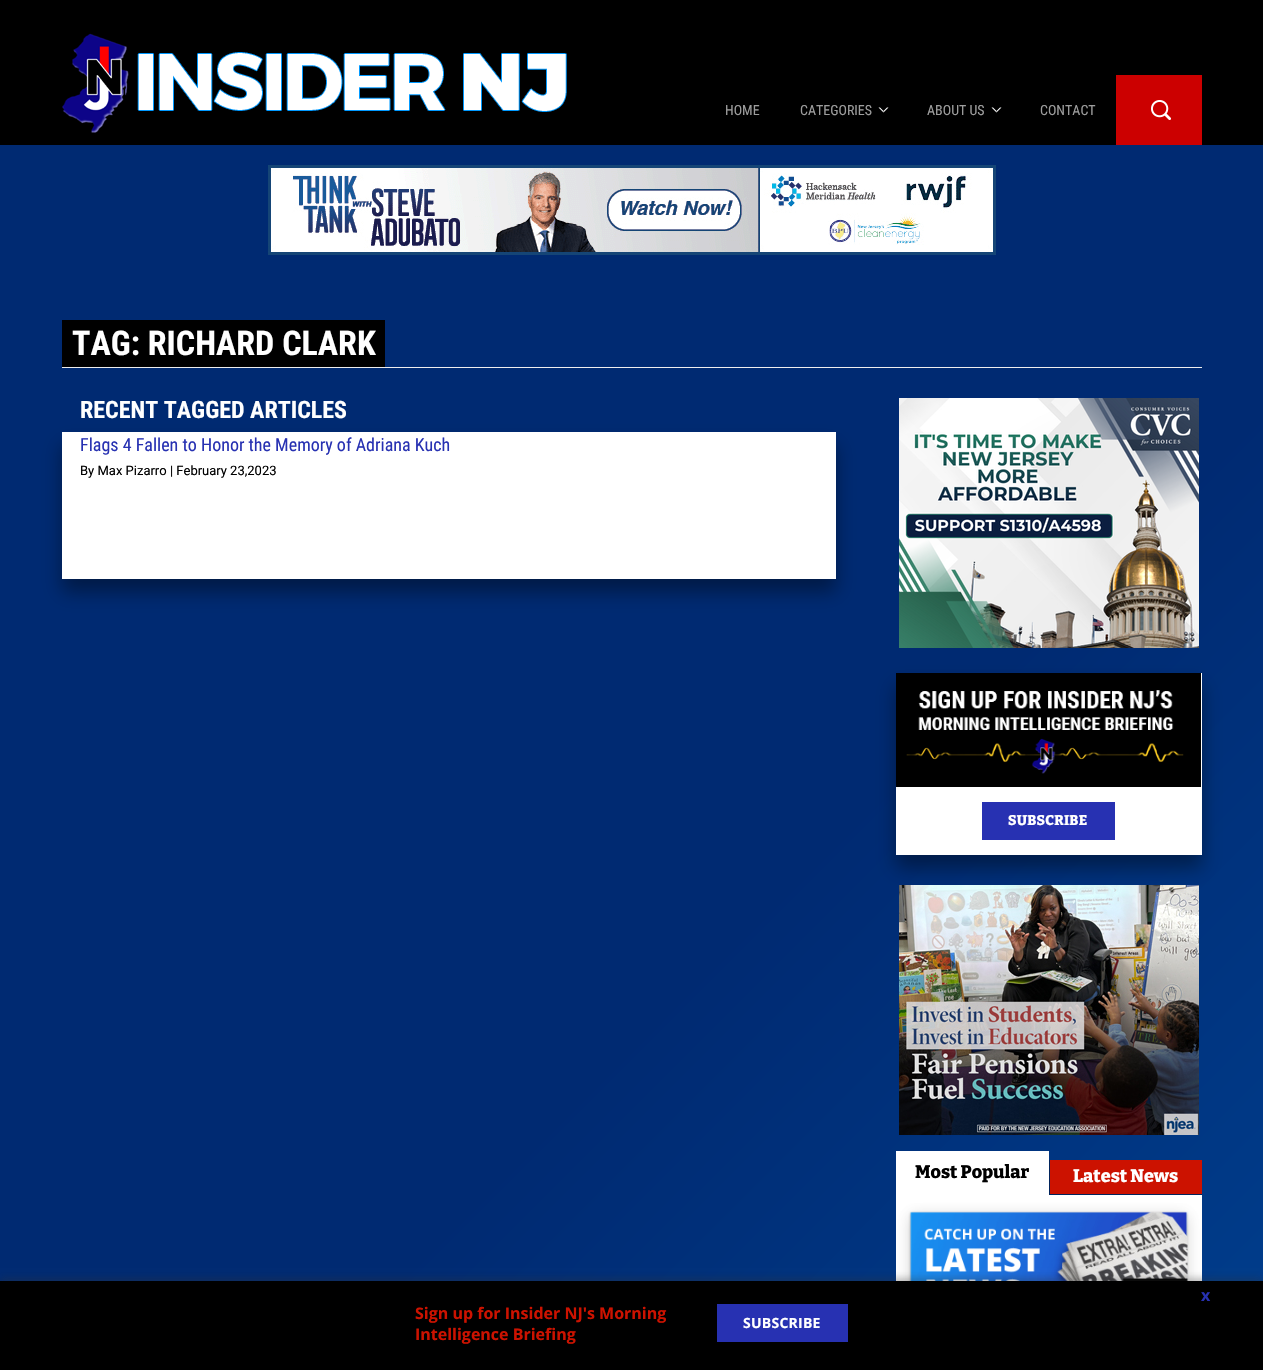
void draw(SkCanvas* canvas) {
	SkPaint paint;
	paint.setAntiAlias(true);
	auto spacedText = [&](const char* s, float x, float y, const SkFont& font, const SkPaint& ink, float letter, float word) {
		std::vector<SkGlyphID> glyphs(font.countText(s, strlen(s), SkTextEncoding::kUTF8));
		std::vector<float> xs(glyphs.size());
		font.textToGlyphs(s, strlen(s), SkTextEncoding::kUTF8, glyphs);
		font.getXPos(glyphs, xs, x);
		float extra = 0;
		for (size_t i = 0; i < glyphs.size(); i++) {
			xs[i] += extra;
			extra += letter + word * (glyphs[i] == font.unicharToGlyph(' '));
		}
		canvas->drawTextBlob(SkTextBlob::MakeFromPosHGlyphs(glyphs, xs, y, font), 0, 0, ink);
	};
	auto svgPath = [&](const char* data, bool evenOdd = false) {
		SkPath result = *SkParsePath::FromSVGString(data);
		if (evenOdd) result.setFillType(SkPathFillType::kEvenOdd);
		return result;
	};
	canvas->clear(0xff000000);
	canvas->drawImageRect(SkImages::DeferredFromEncodedData(SkData::MakeFromFileName("img1.png")), SkRect::MakeXYWH(62, 33, 505, 100), SkSamplingOptions());
	SkFont f1(fontMgr->matchFamilyStyle("Roboto Condensed", SkFontStyle::Normal()), 14);
	f1.setSubpixel(true);
	paint.setColor(0xff9d9d9d);
	canvas->drawString("HOME", 725, 115, f1, paint);
	canvas->drawString("CATEGORIES", 800, 115, f1, paint);
	paint.setColor(0xffffffff);
	canvas->drawPath(svgPath("M888.5 107.5L883.5 112.5V111L887 107.5Z"), paint);
	canvas->drawPath(svgPath("M883.5 112.5L878.5 107.5H880L883.5 111Z"), paint);
	paint.setColor(0xff9d9d9d);
	canvas->drawString("ABOUT US", 927, 115, f1, paint);
	paint.setColor(0xffffffff);
	canvas->drawPath(svgPath("M1001.5 107.5L996.5 112.5V111L1000 107.5Z"), paint);
	canvas->drawPath(svgPath("M996.5 112.5L991.5 107.5H993L996.5 111Z"), paint);
	paint.setColor(0xff9d9d9d);
	canvas->drawString("CONTACT", 1040, 115, f1, paint);
	paint.setColor(0xffcc0000);
	canvas->drawRect(SkRect::MakeXYWH(1116, 75, 86, 70), paint);
	canvas->drawImageRect(SkImages::DeferredFromEncodedData(SkData::MakeFromFileName("img2.png")), SkRect::MakeXYWH(1151, 100, 20, 20), SkSamplingOptions());
	{
		const SkColor colors[] = {0xff002a72, 0xff006ece};
		const float stops[] = {0.31, 1};
		const SkPoint ends[] = {{-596, 741}, {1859, 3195}};
		paint.setShader(SkGradientShader::MakeLinear(ends, colors, stops, 2, SkTileMode::kClamp));
		paint.setAlpha(255);
	}
	canvas->drawRect(SkRect::MakeXYWH(0, 145, 1263, 1136), paint);
	canvas->drawImageRect(SkImages::DeferredFromEncodedData(SkData::MakeFromFileName("img3.png")), SkRect::MakeXYWH(268, 165, 728, 90), SkSamplingOptions());
	paint.setShader(nullptr);
	paint.setColor(0xffeeeeee);
	canvas->drawRect(SkRect::MakeXYWH(62, 367, 1140, 1), paint);
	paint.setColor(0xff000000);
	canvas->drawRect(SkRect::MakeXYWH(62, 320, 323, 47), paint);
	SkFont f2(fontMgr->matchFamilyStyle("Roboto Condensed", SkFontStyle::Bold()), 34);
	f2.setSubpixel(true);
	paint.setColor(0xffffffff);
	canvas->drawString("TAG: RICHARD CLARK", 72, 355, f2, paint);
	paint.setColor(0x61000000);
	paint.setMaskFilter(SkMaskFilter::MakeBlur(kNormal_SkBlurStyle, 9));
	canvas->drawRect(SkRect::MakeXYWH(62, 445, 774, 147), paint);
	paint.setMaskFilter(nullptr);
	SkFont f3(fontMgr->matchFamilyStyle("Roboto Condensed", SkFontStyle::Bold()), 24);
	f3.setSubpixel(true);
	paint.setColor(0xffffffff);
	canvas->drawString("RECENT TAGGED ARTICLES", 80, 418, f3, paint);
	canvas->drawRect(SkRect::MakeXYWH(62, 432, 774, 147), paint);
	SkFont f4(fontMgr->matchFamilyStyle("Roboto Condensed", SkFontStyle::Normal()), 18);
	f4.setSubpixel(true);
	paint.setColor(0xff2731b2);
	canvas->drawString("Flags 4 Fallen to Honor the Memory of Adriana Kuch", 80, 451, f4, paint);
	SkFont f5(fontMgr->matchFamilyStyle("Roboto", SkFontStyle::Normal()), 13);
	f5.setSubpixel(true);
	paint.setColor(0xff000000);
	canvas->drawString("By Max Pizarro | February 23,2023", 80, 475, f5, paint);
	canvas->drawImageRect(SkImages::DeferredFromEncodedData(SkData::MakeFromFileName("img4.png")), SkRect::MakeXYWH(899, 398, 300, 250), SkSamplingOptions());
	paint.setColor(0x61000000);
	paint.setMaskFilter(SkMaskFilter::MakeBlur(kNormal_SkBlurStyle, 9));
	canvas->drawRect(SkRect::MakeXYWH(896, 686, 306, 182), paint);
	paint.setMaskFilter(nullptr);
	paint.setColor(0xffffffff);
	canvas->drawRect(SkRect::MakeXYWH(896, 673, 306, 182), paint);
	canvas->drawImageRect(SkImages::DeferredFromEncodedData(SkData::MakeFromFileName("img5.png")), SkRect::MakeXYWH(896, 673, 305, 114), SkSamplingOptions());
	paint.setColor(0xff2731b2);
	canvas->drawRect(SkRect::MakeXYWH(982, 802, 133, 38), paint);
	SkFont f6(fontMgr->matchFamilyStyle("Bitter", SkFontStyle(800, SkFontStyle::kNormal_Width, SkFontStyle::kUpright_Slant)), 14);
	f6.setSubpixel(true);
	paint.setColor(0xffffffff);
	spacedText("SUBSCRIBE", 1008, 825, f6, paint, 0.25, 0);
	canvas->drawImageRect(SkImages::DeferredFromEncodedData(SkData::MakeFromFileName("img6.png")), SkRect::MakeXYWH(899, 885, 300, 250), SkSamplingOptions());
	canvas->drawRect(SkRect::MakeXYWH(896, 1151, 153, 44), paint);
	SkFont f7(fontMgr->matchFamilyStyle("Bitter", SkFontStyle(800, SkFontStyle::kNormal_Width, SkFontStyle::kUpright_Slant)), 18);
	f7.setSubpixel(true);
	paint.setColor(0xff000000);
	canvas->drawString("Most Popular", 915, 1178, f7, paint);
	paint.setColor(0xffcc1200);
	canvas->drawRect(SkRect::MakeXYWH(1050, 1160, 152, 34), paint);
	paint.setColor(0xff01245c);
	canvas->drawRect(SkRect::MakeXYWH(1049, 1194, 153, 1), paint);
	canvas->drawRect(SkRect::MakeXYWH(1049, 1160, 1, 35), paint);
	paint.setColor(0xffffffff);
	canvas->drawString("Latest News", 1073, 1182, f7, paint);
	canvas->drawImageRect(SkImages::DeferredFromEncodedData(SkData::MakeFromFileName("img7.png")), SkRect::MakeXYWH(896, 1195, 306, 86), SkSamplingOptions());
	paint.setColor(0x52323232);
	paint.setMaskFilter(SkMaskFilter::MakeBlur(kNormal_SkBlurStyle, 3.5));
	canvas->drawRect(SkRect::MakeXYWH(0, 1278, 1263, 89), paint);
	paint.setMaskFilter(nullptr);
	paint.setColor(0xff000000);
	canvas->drawRect(SkRect::MakeXYWH(0, 1281, 1263, 89), paint);
	SkFont f8(fontMgr->matchFamilyStyle("Open Sans", SkFontStyle::Bold()), 16);
	f8.setSubpixel(true);
	paint.setColor(0xffcc1200);
	canvas->drawString("Sign up for Insider NJ's Morning", 415, 1319, f8, paint);
	canvas->drawString("Intelligence Briefing", 415, 1340, f8, paint);
	paint.setColor(0xff2731b2);
	canvas->drawString("x", 1201, 1301, f8, paint);
	canvas->drawRect(SkRect::MakeXYWH(717, 1304, 131, 38), paint);
	SkFont f9(fontMgr->matchFamilyStyle("Open Sans", SkFontStyle::Bold()), 14);
	f9.setSubpixel(true);
	paint.setColor(0xffffffff);
	spacedText("SUBSCRIBE", 743, 1328, f9, paint, 0.25, 0);
}
